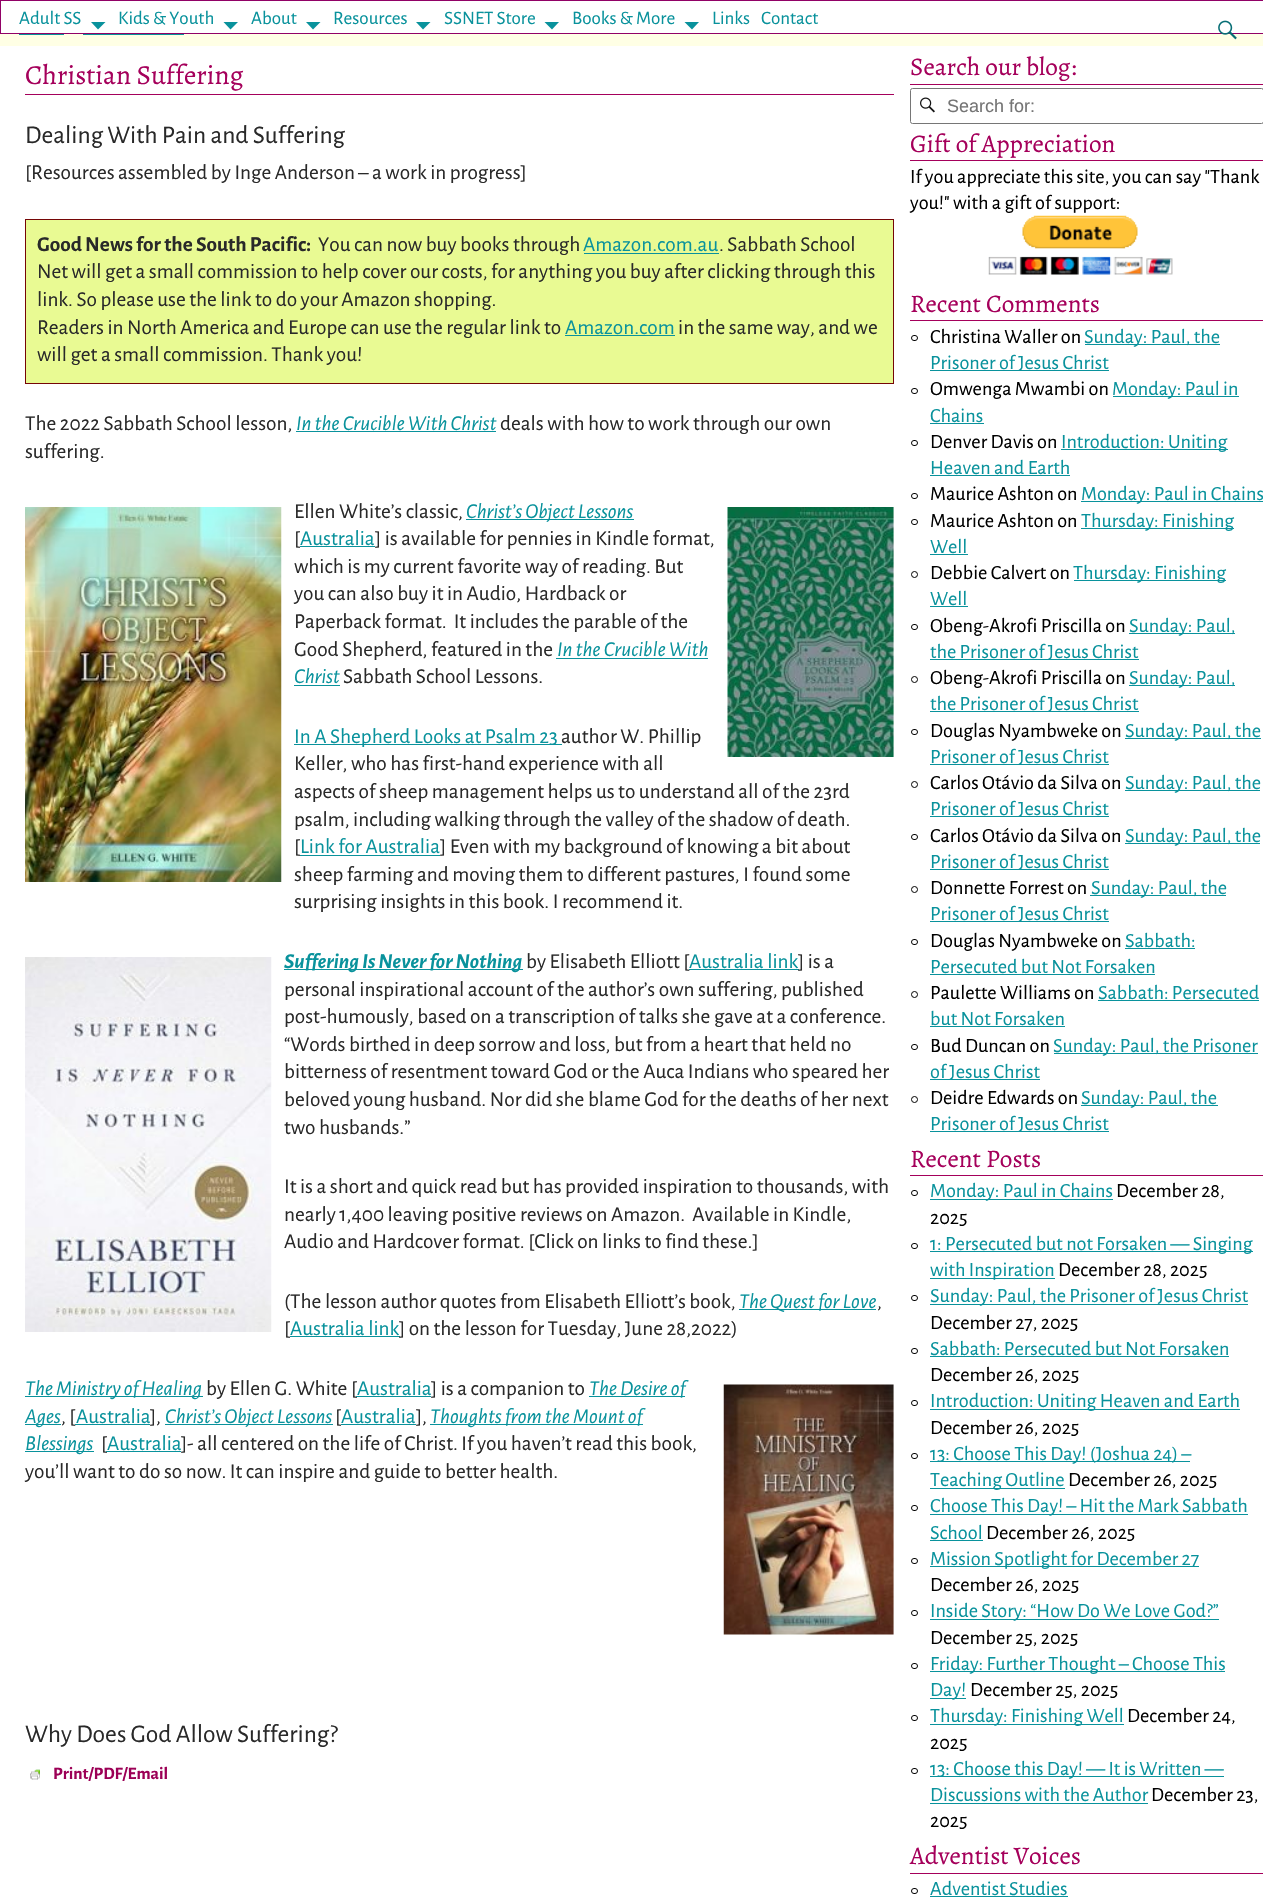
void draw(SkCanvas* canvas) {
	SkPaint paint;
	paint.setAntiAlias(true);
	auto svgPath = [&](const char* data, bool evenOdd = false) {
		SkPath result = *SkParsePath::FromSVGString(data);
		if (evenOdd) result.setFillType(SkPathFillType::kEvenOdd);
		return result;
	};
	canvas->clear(0xffffffff);
	paint.setStroke(true);
	paint.setStrokeWidth(1);
	paint.setColor(0xff910166);
	canvas->drawRect(SkRect::MakeXYWH(0.5, 0.5, 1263, 33), paint);
	SkFont f1(fontMgr->matchFamilyStyle("Alegreya Sans", SkFontStyle::Normal()), 19);
	f1.setSubpixel(true);
	paint.setStroke(false);
	paint.setColor(0xff09929c);
	canvas->drawString("Adult SS", 19, 24, f1, paint);
	canvas->drawPath(svgPath("M91 22H105.5L98 29.5Z"), paint);
	canvas->drawString("Kids & Youth", 118, 24, f1, paint);
	canvas->drawPath(svgPath("M223.5 22H238L230.5 29.5Z"), paint);
	canvas->drawString("About", 251, 24, f1, paint);
	canvas->drawPath(svgPath("M306 22H320.5L313 29.5Z"), paint);
	canvas->drawString("Resources", 333, 24, f1, paint);
	canvas->drawPath(svgPath("M416 22H430.5L423 29.5Z"), paint);
	canvas->drawString("SSNET Store", 444, 24, f1, paint);
	canvas->drawPath(svgPath("M544.5 22H559L552 29.5Z"), paint);
	canvas->drawString("Books & More", 572, 24, f1, paint);
	canvas->drawPath(svgPath("M684.5 22H699L692 29.5Z"), paint);
	canvas->drawString("Links", 712, 24, f1, paint);
	canvas->drawString("Contact", 761, 24, f1, paint);
	paint.setColor(0xffffffe5);
	canvas->drawRect(SkRect::MakeXYWH(0, 34, 1263, 12), paint);
	paint.setColor(0xff09929c);
	canvas->drawRect(SkRect::MakeXYWH(19, 34, 45, 1), paint);
	canvas->drawRect(SkRect::MakeXYWH(83, 34, 101, 1), paint);
	canvas->drawImageRect(SkImages::DeferredFromEncodedData(SkData::MakeFromFileName("img1.png")), SkRect::MakeXYWH(1218, 20, 19, 20), SkSamplingOptions());
	paint.setColor(0xffa5005b);
	canvas->drawRect(SkRect::MakeXYWH(25, 94, 869, 1), paint);
	SkFont f2(fontMgr->matchFamilyStyle("Alegreya", SkFontStyle::Normal()), 27.5);
	f2.setSubpixel(true);
	canvas->drawString("Christian Suffering", 25, 84, f2, paint);
	SkFont f3(fontMgr->matchFamilyStyle("Alegreya Sans", SkFontStyle::Normal()), 25.5);
	f3.setSubpixel(true);
	paint.setColor(0xff292929);
	canvas->drawString("Dealing With Pain and Suffering", 25, 143, f3, paint);
	SkFont f4(fontMgr->matchFamilyStyle("Alegreya Sans", SkFontStyle::Normal()), 21.25);
	f4.setSubpixel(true);
	canvas->drawString("[Resources assembled by Inge Anderson – a work in progress]", 25, 179, f4, paint);
	paint.setColor(0xffe9fa93);
	canvas->drawRect(SkRect::MakeXYWH(25.5, 219.5, 868, 164), paint);
	paint.setStroke(true);
	paint.setColor(0xff750606);
	canvas->drawRect(SkRect::MakeXYWH(25.5, 219.5, 868, 164), paint);
	SkFont f5(fontMgr->matchFamilyStyle("Alegreya Sans", SkFontStyle::Bold()), 21.25);
	f5.setSubpixel(true);
	paint.setStroke(false);
	paint.setColor(0xff292929);
	canvas->drawString("Good News for the South Pacific:", 37, 251, f5, paint);
	canvas->drawString("You can now buy books through", 318, 251, f4, paint);
	paint.setColor(0xff09929c);
	canvas->drawString("Amazon.com.au", 583, 251, f4, paint);
	canvas->drawRect(SkRect::MakeXYWH(584, 253, 135, 1), paint);
	paint.setColor(0xff292929);
	canvas->drawString(". Sabbath School", 719, 251, f4, paint);
	canvas->drawString("Net will get a small commission to help cover our costs, for anything you buy after clicking through this", 37, 278, f4, paint);
	canvas->drawString("link. So please use the link to do your Amazon shopping.", 37, 306, f4, paint);
	canvas->drawString("Readers in North America and Europe can use the regular link to", 37, 334, f4, paint);
	paint.setColor(0xff09929c);
	canvas->drawString("Amazon.com", 565, 334, f4, paint);
	canvas->drawRect(SkRect::MakeXYWH(565, 335, 110, 1), paint);
	paint.setColor(0xff292929);
	canvas->drawString("in the same way, and we", 678, 334, f4, paint);
	canvas->drawString("will get a small commission. Thank you!", 37, 361, f4, paint);
	canvas->drawString("The 2022 Sabbath School lesson,", 25, 430, f4, paint);
	SkFont f6(fontMgr->matchFamilyStyle("Alegreya Sans", SkFontStyle::Italic()), 21.25);
	f6.setSubpixel(true);
	paint.setColor(0xff09929c);
	canvas->drawString("In the Crucible With Christ", 296, 430, f6, paint);
	canvas->drawRect(SkRect::MakeXYWH(296, 431, 200, 1), paint);
	paint.setColor(0xff292929);
	canvas->drawString("deals with how to work through our own", 500, 430, f4, paint);
	canvas->drawString("suffering.", 25, 458, f4, paint);
	canvas->drawImageRect(SkImages::DeferredFromEncodedData(SkData::MakeFromFileName("img2.png")), SkRect::MakeXYWH(25, 507, 257, 375), SkSamplingOptions());
	canvas->drawString("Ellen White’s classic,", 294, 518, f4, paint);
	paint.setColor(0xff09929c);
	canvas->drawRect(SkRect::MakeXYWH(466, 519, 168, 1), paint);
	canvas->drawString("Christ’s Object Lessons", 466, 518, f6, paint);
	canvas->drawImageRect(SkImages::DeferredFromEncodedData(SkData::MakeFromFileName("img3.png")), SkRect::MakeXYWH(727, 507, 167, 250), SkSamplingOptions());
	paint.setColor(0xff292929);
	canvas->drawString("[", 294, 545, f4, paint);
	paint.setColor(0xff09929c);
	canvas->drawString("Australia", 300, 545, f4, paint);
	canvas->drawRect(SkRect::MakeXYWH(300, 546, 75, 1), paint);
	paint.setColor(0xff292929);
	canvas->drawString("] is available for pennies in Kindle format,", 375, 545, f4, paint);
	canvas->drawString("which is my current favorite way of reading. But", 294, 573, f4, paint);
	canvas->drawString("you can also buy it in Audio, Hardback or", 294, 600, f4, paint);
	canvas->drawString("Paperback format.  It includes the parable of the", 294, 628, f4, paint);
	canvas->drawString("Good Shepherd, featured in the", 294, 656, f4, paint);
	paint.setColor(0xff09929c);
	canvas->drawString("In the Crucible With", 557, 656, f6, paint);
	canvas->drawRect(SkRect::MakeXYWH(556, 658, 152, 1), paint);
	canvas->drawString("Christ", 294, 683, f6, paint);
	canvas->drawRect(SkRect::MakeXYWH(294, 685, 46, 1), paint);
	paint.setColor(0xff292929);
	canvas->drawString("Sabbath School Lessons.", 343, 683, f4, paint);
	paint.setColor(0xff09929c);
	canvas->drawRect(SkRect::MakeXYWH(294, 744, 268, 1), paint);
	canvas->drawString("In A Shepherd Looks at Psalm 23", 294, 743, f4, paint);
	paint.setColor(0xff292929);
	canvas->drawString("author W. Phillip", 561, 743, f4, paint);
	canvas->drawString("Keller, who has first-hand experience with all", 294, 770, f4, paint);
	canvas->drawString("aspects of sheep management helps us to understand all of the 23rd", 294, 798, f4, paint);
	canvas->drawString("psalm, including walking through the valley of the shadow of death.", 294, 826, f4, paint);
	canvas->drawString("[", 294, 853, f4, paint);
	paint.setColor(0xff09929c);
	canvas->drawString("Link for Australia", 300, 853, f4, paint);
	canvas->drawRect(SkRect::MakeXYWH(300, 855, 140, 1), paint);
	paint.setColor(0xff292929);
	canvas->drawString("] Even with my background of knowing a bit about", 440, 853, f4, paint);
	canvas->drawString("sheep farming and moving them to different pastures, I found some", 294, 881, f4, paint);
	canvas->drawString("surprising insights in this book. I recommend it.", 294, 908, f4, paint);
	canvas->drawImageRect(SkImages::DeferredFromEncodedData(SkData::MakeFromFileName("img4.png")), SkRect::MakeXYWH(25, 957, 247, 375), SkSamplingOptions());
	paint.setColor(0xff09929c);
	canvas->drawRect(SkRect::MakeXYWH(284, 969, 239, 1), paint);
	SkFont f7(fontMgr->matchFamilyStyle("Alegreya Sans", SkFontStyle::BoldItalic()), 21.25);
	f7.setSubpixel(true);
	canvas->drawString("Suffering Is Never for Nothing", 284, 968, f7, paint);
	paint.setColor(0xff292929);
	canvas->drawString("by Elisabeth Elliott [", 526, 968, f4, paint);
	paint.setColor(0xff09929c);
	canvas->drawString("Australia link", 689, 968, f4, paint);
	canvas->drawRect(SkRect::MakeXYWH(689, 969, 110, 1), paint);
	paint.setColor(0xff292929);
	canvas->drawString("] is a", 798, 968, f4, paint);
	canvas->drawString("personal inspirational account of the author’s own suffering, published", 284, 996, f4, paint);
	canvas->drawString("post-humously, based on a transcription of talks she gave at a conference.", 284, 1023, f4, paint);
	canvas->drawString("“Words birthed in deep sorrow and loss, but from a heart that held no", 284, 1051, f4, paint);
	canvas->drawString("bitterness of resentment toward God or the Auca Indians who speared her", 284, 1078, f4, paint);
	canvas->drawString("beloved young husband. Nor did she blame God for the deaths of her next", 284, 1106, f4, paint);
	canvas->drawString("two husbands.”", 284, 1134, f4, paint);
	canvas->drawString("It is a short and quick read but has provided inspiration to thousands, with", 284, 1193, f4, paint);
	canvas->drawString("nearly 1,400 leaving positive reviews on Amazon.  Available in Kindle,", 284, 1221, f4, paint);
	canvas->drawString("Audio and Hardcover format. [Click on links to find these.]", 284, 1248, f4, paint);
	canvas->drawString("(The lesson author quotes from Elisabeth Elliott’s book,", 284, 1308, f4, paint);
	paint.setColor(0xff09929c);
	canvas->drawRect(SkRect::MakeXYWH(739, 1309, 137, 1), paint);
	canvas->drawString("The Quest for Love", 739, 1308, f6, paint);
	paint.setColor(0xff292929);
	canvas->drawString(",", 877, 1308, f4, paint);
	canvas->drawString("[", 284, 1335, f4, paint);
	paint.setColor(0xff09929c);
	canvas->drawString("Australia link", 290, 1335, f4, paint);
	canvas->drawRect(SkRect::MakeXYWH(290, 1336, 110, 1), paint);
	paint.setColor(0xff292929);
	canvas->drawString("] on the lesson for Tuesday, June 28,2022)", 399, 1335, f4, paint);
	paint.setColor(0xff09929c);
	canvas->drawRect(SkRect::MakeXYWH(25, 1396, 178, 1), paint);
	canvas->drawString("The Ministry of Healing", 25, 1395, f6, paint);
	paint.setColor(0xff292929);
	canvas->drawString("by Ellen G. White [", 206, 1395, f4, paint);
	paint.setColor(0xff09929c);
	canvas->drawString("Australia", 357, 1395, f4, paint);
	canvas->drawRect(SkRect::MakeXYWH(356, 1396, 75, 1), paint);
	paint.setColor(0xff292929);
	canvas->drawString("] is a companion to", 431, 1395, f4, paint);
	paint.setColor(0xff09929c);
	canvas->drawRect(SkRect::MakeXYWH(589, 1396, 96, 1), paint);
	canvas->drawString("The Desire of", 589, 1395, f6, paint);
	canvas->drawImageRect(SkImages::DeferredFromEncodedData(SkData::MakeFromFileName("img5.png")), SkRect::MakeXYWH(723, 1384, 171, 251), SkSamplingOptions());
	canvas->drawRect(SkRect::MakeXYWH(25, 1424, 36, 1), paint);
	canvas->drawString("Ages", 25, 1423, f6, paint);
	paint.setColor(0xff292929);
	canvas->drawString(", [", 61, 1423, f4, paint);
	paint.setColor(0xff09929c);
	canvas->drawString("Australia", 76, 1423, f4, paint);
	canvas->drawRect(SkRect::MakeXYWH(75, 1424, 75, 1), paint);
	paint.setColor(0xff292929);
	canvas->drawString("],", 150, 1423, f4, paint);
	paint.setColor(0xff09929c);
	canvas->drawRect(SkRect::MakeXYWH(165, 1424, 168, 1), paint);
	canvas->drawString("Christ’s Object Lessons", 165, 1423, f6, paint);
	paint.setColor(0xff292929);
	canvas->drawString("[", 335, 1423, f4, paint);
	paint.setColor(0xff09929c);
	canvas->drawString("Australia", 341, 1423, f4, paint);
	canvas->drawRect(SkRect::MakeXYWH(341, 1424, 75, 1), paint);
	paint.setColor(0xff292929);
	canvas->drawString("],", 416, 1423, f4, paint);
	paint.setColor(0xff09929c);
	canvas->drawRect(SkRect::MakeXYWH(430, 1424, 213, 1), paint);
	canvas->drawString("Thoughts from the Mount of", 430, 1423, f6, paint);
	canvas->drawRect(SkRect::MakeXYWH(25, 1451, 69, 1), paint);
	canvas->drawString("Blessings", 25, 1450, f6, paint);
	paint.setColor(0xff292929);
	canvas->drawString("[", 101, 1450, f4, paint);
	paint.setColor(0xff09929c);
	canvas->drawString("Australia", 107, 1450, f4, paint);
	canvas->drawRect(SkRect::MakeXYWH(106, 1451, 75, 1), paint);
	paint.setColor(0xff292929);
	canvas->drawString("]- all centered on the life of Christ. If you haven’t read this book,", 181, 1450, f4, paint);
	canvas->drawString("you’ll want to do so now. It can inspire and guide to better health.", 25, 1478, f4, paint);
	canvas->drawString("Why Does God Allow Suffering?", 25, 1742, f3, paint);
	canvas->drawImageRect(SkImages::DeferredFromEncodedData(SkData::MakeFromFileName("img6.png")), SkRect::MakeXYWH(30, 1769, 10, 11), SkSamplingOptions());
	SkFont f8(fontMgr->matchFamilyStyle("Alegreya Sans", SkFontStyle::Bold()), 17.5);
	f8.setSubpixel(true);
	paint.setColor(0xff9c0056);
	canvas->drawString("Print/PDF/Email", 53, 1779, f8, paint);
	paint.setColor(0xffa5005b);
	canvas->drawRect(SkRect::MakeXYWH(910, 84, 353, 1), paint);
	SkFont f9(fontMgr->matchFamilyStyle("Alegreya", SkFontStyle::Normal()), 25.25);
	f9.setSubpixel(true);
	canvas->drawString("Search our blog:", 910, 75, f9, paint);
	paint.setStroke(true);
	paint.setColor(0xff767676);
	canvas->drawRoundRect(SkRect::MakeXYWH(910.5, 88.5, 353, 35), 2, 2, paint);
	canvas->drawImageRect(SkImages::DeferredFromEncodedData(SkData::MakeFromFileName("img7.png")), SkRect::MakeXYWH(920, 97, 15, 16), SkSamplingOptions());
	SkFont f10(fontMgr->matchFamilyStyle("Liberation Sans", SkFontStyle::Normal()), 18);
	f10.setSubpixel(true);
	paint.setStroke(false);
	paint.setColor(0xff757575);
	canvas->drawString("Search for:", 947, 112, f10, paint);
	paint.setColor(0xffa5005b);
	canvas->drawRect(SkRect::MakeXYWH(910, 160, 353, 1), paint);
	canvas->drawString("Gift of Appreciation", 910, 152, f9, paint);
	SkFont f11(fontMgr->matchFamilyStyle("Alegreya Sans", SkFontStyle::Normal()), 20.2);
	f11.setSubpixel(true);
	paint.setColor(0xff000000);
	canvas->drawString("If you appreciate this site, you can say \"Thank", 910, 183, f11, paint);
	canvas->drawString("you!\" with a gift of support:", 910, 209, f11, paint);
	canvas->drawImageRect(SkImages::DeferredFromEncodedData(SkData::MakeFromFileName("img8.png")), SkRect::MakeXYWH(988, 215, 185, 60), SkSamplingOptions());
	paint.setColor(0xffa5005b);
	canvas->drawRect(SkRect::MakeXYWH(910, 320, 353, 1), paint);
	canvas->drawString("Recent Comments", 910, 312, f9, paint);
	paint.setStroke(true);
	paint.setColor(0xff000000);
	canvas->drawRoundRect(SkRect::MakeXYWH(911.5, 335.5, 6, 5), 2.5, 2.5, paint);
	paint.setStroke(false);
	canvas->drawString("Christina Waller on", 930, 343, f11, paint);
	paint.setColor(0xff09929c);
	canvas->drawRect(SkRect::MakeXYWH(1085, 344, 135, 1), paint);
	canvas->drawString("Sunday: Paul, the", 1084, 343, f11, paint);
	canvas->drawRect(SkRect::MakeXYWH(930, 370, 179, 1), paint);
	canvas->drawString("Prisoner of Jesus Christ", 930, 369, f11, paint);
	paint.setStroke(true);
	paint.setColor(0xff000000);
	canvas->drawRoundRect(SkRect::MakeXYWH(911.5, 388.5, 6, 5), 2.5, 2.5, paint);
	paint.setStroke(false);
	canvas->drawString("Omwenga Mwambi on", 930, 395, f11, paint);
	paint.setColor(0xff09929c);
	canvas->drawRect(SkRect::MakeXYWH(1113, 396, 126, 1), paint);
	canvas->drawString("Monday: Paul in", 1112, 395, f11, paint);
	canvas->drawString("Chains", 930, 422, f11, paint);
	canvas->drawRect(SkRect::MakeXYWH(930, 423, 54, 1), paint);
	paint.setStroke(true);
	paint.setColor(0xff000000);
	canvas->drawRoundRect(SkRect::MakeXYWH(911.5, 440.5, 6, 5), 2.5, 2.5, paint);
	paint.setStroke(false);
	canvas->drawString("Denver Davis on", 930, 448, f11, paint);
	paint.setColor(0xff09929c);
	canvas->drawRect(SkRect::MakeXYWH(1061, 449, 167, 1), paint);
	canvas->drawString("Introduction: Uniting", 1061, 448, f11, paint);
	canvas->drawString("Heaven and Earth", 930, 474, f11, paint);
	canvas->drawRect(SkRect::MakeXYWH(930, 475, 140, 1), paint);
	paint.setStroke(true);
	paint.setColor(0xff000000);
	canvas->drawRoundRect(SkRect::MakeXYWH(911.5, 493.5, 6, 5), 2.5, 2.5, paint);
	paint.setStroke(false);
	canvas->drawString("Maurice Ashton on", 930, 500, f11, paint);
	paint.setColor(0xff09929c);
	canvas->drawRect(SkRect::MakeXYWH(1081, 501, 182, 1), paint);
	canvas->drawString("Monday: Paul in Chains", 1081, 500, f11, paint);
	paint.setStroke(true);
	paint.setColor(0xff000000);
	canvas->drawRoundRect(SkRect::MakeXYWH(911.5, 519.5, 6, 5), 2.5, 2.5, paint);
	paint.setStroke(false);
	canvas->drawString("Maurice Ashton on", 930, 527, f11, paint);
	paint.setColor(0xff09929c);
	canvas->drawRect(SkRect::MakeXYWH(1081, 528, 153, 1), paint);
	canvas->drawString("Thursday: Finishing", 1081, 527, f11, paint);
	canvas->drawString("Well", 930, 553, f11, paint);
	canvas->drawRect(SkRect::MakeXYWH(930, 554, 38, 1), paint);
	paint.setStroke(true);
	paint.setColor(0xff000000);
	canvas->drawCircle(914.5, 574.5, 3, paint);
	paint.setStroke(false);
	canvas->drawString("Debbie Calvert on", 930, 579, f11, paint);
	paint.setColor(0xff09929c);
	canvas->drawRect(SkRect::MakeXYWH(1074, 580, 152, 1), paint);
	canvas->drawString("Thursday: Finishing", 1073, 579, f11, paint);
	canvas->drawString("Well", 930, 605, f11, paint);
	canvas->drawRect(SkRect::MakeXYWH(930, 606, 38, 1), paint);
	paint.setStroke(true);
	paint.setColor(0xff000000);
	canvas->drawRoundRect(SkRect::MakeXYWH(911.5, 624.5, 6, 5), 2.5, 2.5, paint);
	paint.setStroke(false);
	canvas->drawString("Obeng-Akrofi Priscilla on", 930, 632, f11, paint);
	paint.setColor(0xff09929c);
	canvas->drawRect(SkRect::MakeXYWH(1129, 633, 106, 1), paint);
	canvas->drawString("Sunday: Paul,", 1129, 632, f11, paint);
	canvas->drawRect(SkRect::MakeXYWH(930, 659, 209, 1), paint);
	canvas->drawString("the Prisoner of Jesus Christ", 930, 658, f11, paint);
	paint.setStroke(true);
	paint.setColor(0xff000000);
	canvas->drawCircle(914.5, 679.5, 3, paint);
	paint.setStroke(false);
	canvas->drawString("Obeng-Akrofi Priscilla on", 930, 684, f11, paint);
	paint.setColor(0xff09929c);
	canvas->drawRect(SkRect::MakeXYWH(1129, 685, 106, 1), paint);
	canvas->drawString("Sunday: Paul,", 1129, 684, f11, paint);
	canvas->drawRect(SkRect::MakeXYWH(930, 711, 209, 1), paint);
	canvas->drawString("the Prisoner of Jesus Christ", 930, 710, f11, paint);
	paint.setStroke(true);
	paint.setColor(0xff000000);
	canvas->drawRoundRect(SkRect::MakeXYWH(911.5, 729.5, 6, 5), 2.5, 2.5, paint);
	paint.setStroke(false);
	canvas->drawString("Douglas Nyambweke on", 930, 737, f11, paint);
	paint.setColor(0xff09929c);
	canvas->drawRect(SkRect::MakeXYWH(1125, 738, 136, 1), paint);
	canvas->drawString("Sunday: Paul, the", 1125, 737, f11, paint);
	canvas->drawRect(SkRect::MakeXYWH(930, 764, 179, 1), paint);
	canvas->drawString("Prisoner of Jesus Christ", 930, 763, f11, paint);
	paint.setStroke(true);
	paint.setColor(0xff000000);
	canvas->drawCircle(914.5, 784.5, 3, paint);
	paint.setStroke(false);
	canvas->drawString("Carlos Otávio da Silva on", 930, 789, f11, paint);
	paint.setColor(0xff09929c);
	canvas->drawRect(SkRect::MakeXYWH(1125, 790, 135, 1), paint);
	canvas->drawString("Sunday: Paul, the", 1125, 789, f11, paint);
	canvas->drawRect(SkRect::MakeXYWH(930, 816, 179, 1), paint);
	canvas->drawString("Prisoner of Jesus Christ", 930, 815, f11, paint);
	paint.setStroke(true);
	paint.setColor(0xff000000);
	canvas->drawRoundRect(SkRect::MakeXYWH(911.5, 834.5, 6, 5), 2.5, 2.5, paint);
	paint.setStroke(false);
	canvas->drawString("Carlos Otávio da Silva on", 930, 842, f11, paint);
	paint.setColor(0xff09929c);
	canvas->drawRect(SkRect::MakeXYWH(1125, 843, 135, 1), paint);
	canvas->drawString("Sunday: Paul, the", 1125, 842, f11, paint);
	canvas->drawRect(SkRect::MakeXYWH(930, 869, 179, 1), paint);
	canvas->drawString("Prisoner of Jesus Christ", 930, 868, f11, paint);
	paint.setStroke(true);
	paint.setColor(0xff000000);
	canvas->drawCircle(914.5, 889.5, 3, paint);
	paint.setStroke(false);
	canvas->drawString("Donnette Forrest on", 930, 894, f11, paint);
	paint.setColor(0xff09929c);
	canvas->drawRect(SkRect::MakeXYWH(1090, 895, 136, 1), paint);
	canvas->drawString("Sunday: Paul, the", 1091, 894, f11, paint);
	canvas->drawRect(SkRect::MakeXYWH(930, 921, 179, 1), paint);
	canvas->drawString("Prisoner of Jesus Christ", 930, 920, f11, paint);
	paint.setStroke(true);
	paint.setColor(0xff000000);
	canvas->drawRoundRect(SkRect::MakeXYWH(911.5, 939.5, 6, 5), 2.5, 2.5, paint);
	paint.setStroke(false);
	canvas->drawString("Douglas Nyambweke on", 930, 947, f11, paint);
	paint.setColor(0xff09929c);
	canvas->drawString("Sabbath:", 1125, 947, f11, paint);
	canvas->drawRect(SkRect::MakeXYWH(1125, 948, 70, 1), paint);
	canvas->drawString("Persecuted but Not Forsaken", 930, 973, f11, paint);
	canvas->drawRect(SkRect::MakeXYWH(930, 974, 225, 1), paint);
	paint.setStroke(true);
	paint.setColor(0xff000000);
	canvas->drawCircle(914.5, 994.5, 3, paint);
	paint.setStroke(false);
	canvas->drawString("Paulette Williams on", 930, 999, f11, paint);
	paint.setColor(0xff09929c);
	canvas->drawString("Sabbath: Persecuted", 1098, 999, f11, paint);
	canvas->drawRect(SkRect::MakeXYWH(1098, 1000, 161, 1), paint);
	canvas->drawString("but Not Forsaken", 930, 1025, f11, paint);
	canvas->drawRect(SkRect::MakeXYWH(930, 1026, 135, 1), paint);
	paint.setStroke(true);
	paint.setColor(0xff000000);
	canvas->drawRoundRect(SkRect::MakeXYWH(911.5, 1044.5, 6, 5), 2.5, 2.5, paint);
	paint.setStroke(false);
	canvas->drawString("Bud Duncan on", 930, 1052, f11, paint);
	paint.setColor(0xff09929c);
	canvas->drawRect(SkRect::MakeXYWH(1054, 1053, 204, 1), paint);
	canvas->drawString("Sunday: Paul, the Prisoner", 1053, 1052, f11, paint);
	canvas->drawRect(SkRect::MakeXYWH(930, 1079, 110, 1), paint);
	canvas->drawString("of Jesus Christ", 930, 1078, f11, paint);
	paint.setStroke(true);
	paint.setColor(0xff000000);
	canvas->drawCircle(914.5, 1099.5, 3, paint);
	paint.setStroke(false);
	canvas->drawString("Deidre Edwards on", 930, 1104, f11, paint);
	paint.setColor(0xff09929c);
	canvas->drawRect(SkRect::MakeXYWH(1081, 1105, 137, 1), paint);
	canvas->drawString("Sunday: Paul, the", 1081, 1104, f11, paint);
	canvas->drawRect(SkRect::MakeXYWH(930, 1131, 179, 1), paint);
	canvas->drawString("Prisoner of Jesus Christ", 930, 1130, f11, paint);
	paint.setColor(0xffa5005b);
	canvas->drawRect(SkRect::MakeXYWH(910, 1175, 353, 1), paint);
	canvas->drawString("Recent Posts", 910, 1167, f9, paint);
	paint.setStroke(true);
	paint.setColor(0xff000000);
	canvas->drawRoundRect(SkRect::MakeXYWH(911.5, 1190.5, 6, 5), 2.5, 2.5, paint);
	paint.setStroke(false);
	paint.setColor(0xff09929c);
	canvas->drawRect(SkRect::MakeXYWH(930, 1199, 183, 1), paint);
	canvas->drawString("Monday: Paul in Chains", 930, 1197, f11, paint);
	paint.setColor(0xff000000);
	canvas->drawString("December 28,", 1116, 1197, f11, paint);
	canvas->drawString("2025", 930, 1224, f11, paint);
	paint.setStroke(true);
	canvas->drawRoundRect(SkRect::MakeXYWH(911.5, 1243.5, 6, 5), 2.5, 2.5, paint);
	paint.setStroke(false);
	paint.setColor(0xff09929c);
	canvas->drawRect(SkRect::MakeXYWH(930, 1251, 323, 1), paint);
	canvas->drawString("1: Persecuted but not Forsaken — Singing", 930, 1250, f11, paint);
	canvas->drawRect(SkRect::MakeXYWH(930, 1278, 125, 1), paint);
	canvas->drawString("with Inspiration", 930, 1276, f11, paint);
	paint.setColor(0xff000000);
	canvas->drawString("December 28, 2025", 1058, 1276, f11, paint);
	paint.setStroke(true);
	canvas->drawRoundRect(SkRect::MakeXYWH(911.5, 1295.5, 6, 5), 2.5, 2.5, paint);
	paint.setStroke(false);
	paint.setColor(0xff09929c);
	canvas->drawRect(SkRect::MakeXYWH(930, 1304, 318, 1), paint);
	canvas->drawString("Sunday: Paul, the Prisoner of Jesus Christ", 930, 1302, f11, paint);
	paint.setColor(0xff000000);
	canvas->drawString("December 27, 2025", 930, 1329, f11, paint);
	paint.setStroke(true);
	canvas->drawRoundRect(SkRect::MakeXYWH(911.5, 1348.5, 6, 5), 2.5, 2.5, paint);
	paint.setStroke(false);
	paint.setColor(0xff09929c);
	canvas->drawString("Sabbath: Persecuted but Not Forsaken", 930, 1355, f11, paint);
	canvas->drawRect(SkRect::MakeXYWH(930, 1356, 299, 1), paint);
	paint.setColor(0xff000000);
	canvas->drawString("December 26, 2025", 930, 1381, f11, paint);
	paint.setStroke(true);
	canvas->drawRoundRect(SkRect::MakeXYWH(911.5, 1400.5, 6, 5), 2.5, 2.5, paint);
	paint.setStroke(false);
	paint.setColor(0xff09929c);
	canvas->drawRect(SkRect::MakeXYWH(930, 1409, 310, 1), paint);
	canvas->drawString("Introduction: Uniting Heaven and Earth", 930, 1407, f11, paint);
	paint.setColor(0xff000000);
	canvas->drawString("December 26, 2025", 930, 1434, f11, paint);
	paint.setStroke(true);
	canvas->drawRoundRect(SkRect::MakeXYWH(911.5, 1453.5, 6, 5), 2.5, 2.5, paint);
	paint.setStroke(false);
	paint.setColor(0xff09929c);
	canvas->drawRect(SkRect::MakeXYWH(930, 1461, 165, 1), paint);
	canvas->drawString("13: Choose This Day! (", 930, 1460, f11, paint);
	canvas->drawRect(SkRect::MakeXYWH(1095, 1461, 95, 1), paint);
	canvas->drawString("Joshua 24) –", 1096, 1460, f11, paint);
	canvas->drawRect(SkRect::MakeXYWH(930, 1488, 135, 1), paint);
	canvas->drawString("Teaching Outline", 930, 1486, f11, paint);
	paint.setColor(0xff000000);
	canvas->drawString("December 26, 2025", 1068, 1486, f11, paint);
	paint.setStroke(true);
	canvas->drawRoundRect(SkRect::MakeXYWH(911.5, 1505.5, 6, 5), 2.5, 2.5, paint);
	paint.setStroke(false);
	paint.setColor(0xff09929c);
	canvas->drawRect(SkRect::MakeXYWH(930, 1514, 318, 1), paint);
	canvas->drawString("Choose This Day! – Hit the Mark Sabbath", 930, 1512, f11, paint);
	canvas->drawString("School", 930, 1539, f11, paint);
	canvas->drawRect(SkRect::MakeXYWH(930, 1540, 53, 1), paint);
	paint.setColor(0xff000000);
	canvas->drawString("December 26, 2025", 986, 1539, f11, paint);
	paint.setStroke(true);
	canvas->drawRoundRect(SkRect::MakeXYWH(911.5, 1558.5, 6, 5), 2.5, 2.5, paint);
	paint.setStroke(false);
	paint.setColor(0xff09929c);
	canvas->drawRect(SkRect::MakeXYWH(930, 1566, 269, 1), paint);
	canvas->drawString("Mission Spotlight for December 27", 930, 1565, f11, paint);
	paint.setColor(0xff000000);
	canvas->drawString("December 26, 2025", 930, 1591, f11, paint);
	paint.setStroke(true);
	canvas->drawRoundRect(SkRect::MakeXYWH(911.5, 1610.5, 6, 5), 2.5, 2.5, paint);
	paint.setStroke(false);
	paint.setColor(0xff09929c);
	canvas->drawRect(SkRect::MakeXYWH(930, 1619, 289, 1), paint);
	canvas->drawString("Inside Story: “How Do We Love God?”", 930, 1617, f11, paint);
	paint.setColor(0xff000000);
	canvas->drawString("December 25, 2025", 930, 1644, f11, paint);
	paint.setStroke(true);
	canvas->drawRoundRect(SkRect::MakeXYWH(911.5, 1663.5, 6, 5), 2.5, 2.5, paint);
	paint.setStroke(false);
	paint.setColor(0xff09929c);
	canvas->drawRect(SkRect::MakeXYWH(930, 1671, 295, 1), paint);
	canvas->drawString("Friday: Further Thought – Choose This", 930, 1670, f11, paint);
	canvas->drawRect(SkRect::MakeXYWH(930, 1698, 36, 1), paint);
	canvas->drawString("Day!", 930, 1696, f11, paint);
	paint.setColor(0xff000000);
	canvas->drawString("December 25, 2025", 970, 1696, f11, paint);
	paint.setStroke(true);
	canvas->drawRoundRect(SkRect::MakeXYWH(911.5, 1715.5, 6, 5), 2.5, 2.5, paint);
	paint.setStroke(false);
	paint.setColor(0xff09929c);
	canvas->drawRect(SkRect::MakeXYWH(930, 1724, 194, 1), paint);
	canvas->drawString("Thursday: Finishing Well", 930, 1722, f11, paint);
	paint.setColor(0xff000000);
	canvas->drawString("December 24,", 1127, 1722, f11, paint);
	canvas->drawString("2025", 930, 1749, f11, paint);
	paint.setStroke(true);
	canvas->drawRoundRect(SkRect::MakeXYWH(911.5, 1768.5, 6, 5), 2.5, 2.5, paint);
	paint.setStroke(false);
	paint.setColor(0xff09929c);
	canvas->drawRect(SkRect::MakeXYWH(930, 1776, 294, 1), paint);
	canvas->drawString("13: Choose this Day! — It is Written —", 930, 1775, f11, paint);
	canvas->drawString("Discussions with the Author", 930, 1801, f11, paint);
	canvas->drawRect(SkRect::MakeXYWH(930, 1803, 218, 1), paint);
	paint.setColor(0xff000000);
	canvas->drawString("December 23,", 1151, 1801, f11, paint);
	canvas->drawString("2025", 930, 1827, f11, paint);
	paint.setColor(0xffa5005b);
	canvas->drawRect(SkRect::MakeXYWH(910, 1873, 353, 1), paint);
	canvas->drawString("Adventist Voices", 910, 1864, f9, paint);
	paint.setStroke(true);
	paint.setColor(0xff000000);
	canvas->drawRoundRect(SkRect::MakeXYWH(911.5, 1888.5, 6, 5), 2.5, 2.5, paint);
	paint.setStroke(false);
	paint.setColor(0xff09929c);
	canvas->drawString("Adventist Studies", 930, 1895, f11, paint);
	canvas->drawRect(SkRect::MakeXYWH(930, 1896, 138, 1), paint);
}
